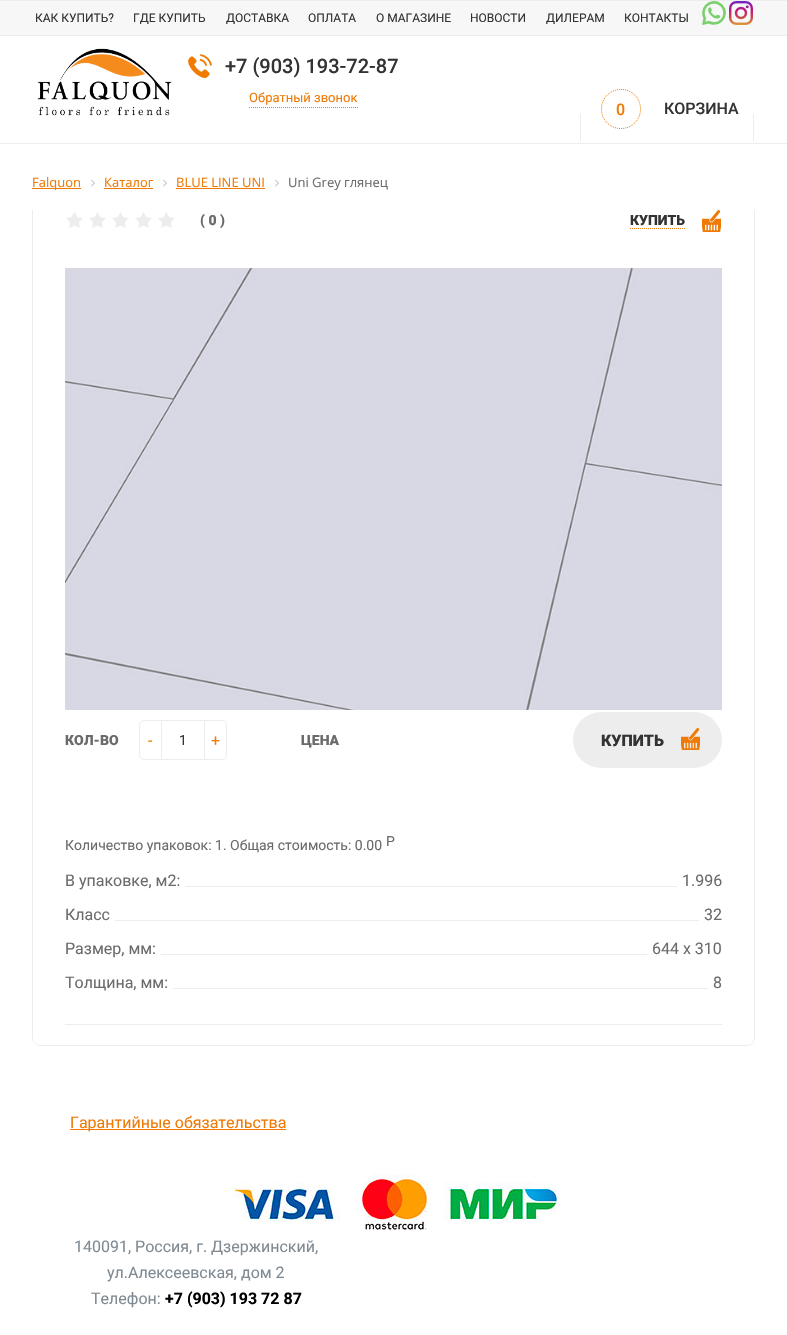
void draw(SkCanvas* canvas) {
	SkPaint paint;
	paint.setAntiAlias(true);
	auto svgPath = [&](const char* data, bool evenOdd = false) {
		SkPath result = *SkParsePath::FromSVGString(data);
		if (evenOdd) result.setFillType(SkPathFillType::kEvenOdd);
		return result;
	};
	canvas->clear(0xffffffff);
	paint.setColor(0xfff7f7f7);
	canvas->drawRect(SkRect::MakeXYWH(0, 1, 787, 34), paint);
	paint.setColor(0xffededed);
	canvas->drawRect(SkRect::MakeXYWH(0, 0, 787, 1), paint);
	canvas->drawRect(SkRect::MakeXYWH(0, 35, 787, 1), paint);
	SkFont f1(fontMgr->matchFamilyStyle("Roboto", SkFontStyle::Normal()), 12);
	f1.setSubpixel(true);
	paint.setColor(0xff333333);
	canvas->drawString("КАК КУПИТЬ?", 35, 22, f1, paint);
	canvas->drawString("ГДЕ КУПИТЬ", 133, 22, f1, paint);
	canvas->drawString("ДОСТАВКА", 226, 22, f1, paint);
	canvas->drawString("ОПЛАТА", 308, 22, f1, paint);
	canvas->drawString("О МАГАЗИНЕ", 376, 22, f1, paint);
	canvas->drawString("НОВОСТИ", 470, 22, f1, paint);
	canvas->drawString("ДИЛЕРАМ", 546, 22, f1, paint);
	canvas->drawString("КОНТАКТЫ", 624, 22, f1, paint);
	canvas->drawImageRect(SkImages::DeferredFromEncodedData(SkData::MakeFromFileName("img1.png")), SkRect::MakeXYWH(702, 1, 24, 24), SkSamplingOptions());
	canvas->drawImageRect(SkImages::DeferredFromEncodedData(SkData::MakeFromFileName("img2.png")), SkRect::MakeXYWH(729, 1, 24, 24), SkSamplingOptions());
	paint.setColor(0xffededed);
	canvas->drawRect(SkRect::MakeXYWH(0, 143, 787, 1), paint);
	canvas->drawImageRect(SkImages::DeferredFromEncodedData(SkData::MakeFromFileName("img3.png")), SkRect::MakeXYWH(37, 48, 135, 68), SkSamplingOptions());
	canvas->drawImageRect(SkImages::DeferredFromEncodedData(SkData::MakeFromFileName("img4.png")), SkRect::MakeXYWH(188, 54, 24, 24), SkSamplingOptions());
	SkFont f2(fontMgr->matchFamilyStyle("Roboto", SkFontStyle(500, SkFontStyle::kNormal_Width, SkFontStyle::kUpright_Slant)), 20);
	f2.setSubpixel(true);
	paint.setColor(0xff333333);
	canvas->drawString("+7 (903) 193-72-87", 225, 73, f2, paint);
	paint.setStroke(true);
	paint.setStrokeWidth(1);
	paint.setColor(0xffef7a06);
	paint.setPathEffect(SkDashPathEffect::Make({{1, 1}}, 0));
	canvas->drawPath(svgPath("M249 107.5H358"), paint);
	paint.setPathEffect(nullptr);
	SkFont f3(fontMgr->matchFamilyStyle("Roboto", SkFontStyle::Normal()), 13);
	f3.setSubpixel(true);
	paint.setStroke(false);
	canvas->drawString("Обратный звонок", 249, 102, f3, paint);
	paint.setStroke(true);
	paint.setPathEffect(SkDashPathEffect::Make({{1, 1}}, 0));
	canvas->drawPath(svgPath("M621 89.5C632 89.5 640.5 98 640.5 109C640.5 120 632 128.5 621 128.5C610 128.5 601.5 120 601.5 109C601.5 98 610 89.5 621 89.5Z"), paint);
	paint.setPathEffect(nullptr);
	SkFont f4(fontMgr->matchFamilyStyle("Roboto", SkFontStyle(500, SkFontStyle::kNormal_Width, SkFontStyle::kUpright_Slant)), 16);
	f4.setSubpixel(true);
	paint.setStroke(false);
	canvas->drawString("0", 616, 115, f4, paint);
	paint.setColor(0xff333333);
	canvas->drawString("КОРЗИНА", 664, 114, f4, paint);
	paint.setColor(0xffededed);
	canvas->drawRect(SkRect::MakeXYWH(580, 114, 1, 27), paint);
	canvas->drawRect(SkRect::MakeXYWH(753, 114, 1, 27), paint);
	paint.setColor(0xffef7a06);
	canvas->drawRect(SkRect::MakeXYWH(32, 188, 49, 1), paint);
	SkFont f5(fontMgr->matchFamilyStyle("Open Sans", SkFontStyle::Normal()), 13);
	f5.setSubpixel(true);
	canvas->drawString("Falquon", 32, 187, f5, paint);
	canvas->drawImageRect(SkImages::DeferredFromEncodedData(SkData::MakeFromFileName("img5.png")), SkRect::MakeXYWH(91, 179, 4, 8), SkSamplingOptions());
	canvas->drawString("Каталог", 104, 187, f5, paint);
	canvas->drawRect(SkRect::MakeXYWH(104, 188, 49, 1), paint);
	canvas->drawImageRect(SkImages::DeferredFromEncodedData(SkData::MakeFromFileName("img5.png")), SkRect::MakeXYWH(163, 179, 4, 8), SkSamplingOptions());
	canvas->drawString("BLUE LINE UNI", 176, 187, f5, paint);
	canvas->drawRect(SkRect::MakeXYWH(176, 188, 89, 1), paint);
	canvas->drawImageRect(SkImages::DeferredFromEncodedData(SkData::MakeFromFileName("img5.png")), SkRect::MakeXYWH(275, 179, 4, 8), SkSamplingOptions());
	paint.setColor(0xff6b6b6b);
	canvas->drawString("Uni Grеy глянец", 288, 187, f5, paint);
	paint.setColor(0xffededed);
	canvas->drawRect(SkRect::MakeXYWH(754, 210, 1, 30), paint);
	canvas->drawRect(SkRect::MakeXYWH(32, 210, 1, 30), paint);
	canvas->drawRect(SkRect::MakeXYWH(66, 212, 109, 16), paint);
	canvas->drawImageRect(SkImages::DeferredFromEncodedData(SkData::MakeFromFileName("img6.png")), SkRect::MakeXYWH(65, 210, 112, 20), SkSamplingOptions());
	SkFont f6(fontMgr->matchFamilyStyle("Roboto", SkFontStyle(900, SkFontStyle::kNormal_Width, SkFontStyle::kUpright_Slant)), 14);
	f6.setSubpixel(true);
	paint.setColor(0xff6b6b6b);
	canvas->drawString("( 0 )", 200, 225, f6, paint);
	paint.setColor(0xff333333);
	canvas->drawString("КУПИТЬ", 630, 225, f6, paint);
	paint.setStroke(true);
	paint.setColor(0xffef7a06);
	paint.setPathEffect(SkDashPathEffect::Make({{1, 1}}, 0));
	canvas->drawPath(svgPath("M630 228.5H686"), paint);
	paint.setPathEffect(nullptr);
	canvas->drawImageRect(SkImages::DeferredFromEncodedData(SkData::MakeFromFileName("img7.png")), SkRect::MakeXYWH(702, 210, 19, 22), SkSamplingOptions());
	paint.setStroke(false);
	paint.setColor(0xffededed);
	canvas->drawPath(svgPath("M32 240H755V1038C755 1042 751 1046 747 1046H40C36 1046 32 1042 32 1038ZM33 240H754V1038C754 1042 751 1045 747 1045H40C36 1045 33 1042 33 1038Z", true), paint);
	canvas->drawImageRect(SkImages::DeferredFromEncodedData(SkData::MakeFromFileName("img8.png")), SkRect::MakeXYWH(65, 268, 657, 442), SkSamplingOptions());
	paint.setColor(0xff6b6b6b);
	canvas->drawString("КОЛ-ВО", 65, 745, f6, paint);
	paint.setStroke(true);
	paint.setColor(0xffededed);
	canvas->drawRect(SkRect::MakeXYWH(159.5, 720.5, 47, 39), paint);
	paint.setStroke(false);
	paint.setColor(0xffffffff);
	canvas->drawPath(svgPath("M144 720.5H161.5V759.5H144C141.5 759.5 139.5 757.5 139.5 755V725C139.5 722.5 141.5 720.5 144 720.5Z"), paint);
	paint.setStroke(true);
	paint.setColor(0xffededed);
	canvas->drawPath(svgPath("M144 720.5H161.5V759.5H144C141.5 759.5 139.5 757.5 139.5 755V725C139.5 722.5 141.5 720.5 144 720.5Z"), paint);
	SkFont f7(fontMgr->matchFamilyStyle("Roboto", SkFontStyle::Normal()), 16);
	f7.setSubpixel(true);
	paint.setStroke(false);
	paint.setColor(0xffef7a06);
	canvas->drawString("-", 148, 746, f7, paint);
	SkFont f8(fontMgr->matchFamilyStyle("Roboto", SkFontStyle::Normal()), 14);
	f8.setSubpixel(true);
	paint.setColor(0xff333333);
	canvas->drawString("1", 179, 745, f8, paint);
	paint.setColor(0xffffffff);
	canvas->drawPath(svgPath("M204.5 720.5H222C224.5 720.5 226.5 722.5 226.5 725V755C226.5 757.5 224.5 759.5 222 759.5H204.5Z"), paint);
	paint.setStroke(true);
	paint.setColor(0xffededed);
	canvas->drawPath(svgPath("M204.5 720.5H222C224.5 720.5 226.5 722.5 226.5 725V755C226.5 757.5 224.5 759.5 222 759.5H204.5Z"), paint);
	paint.setStroke(false);
	paint.setColor(0xffef7a06);
	canvas->drawString("+", 211, 746, f7, paint);
	paint.setColor(0xff6b6b6b);
	canvas->drawString("ЦЕНА", 301, 745, f6, paint);
	paint.setColor(0xffededed);
	canvas->drawRoundRect(SkRect::MakeXYWH(573, 712, 149, 56), 28, 28, paint);
	SkFont f9(fontMgr->matchFamilyStyle("Roboto", SkFontStyle(900, SkFontStyle::kNormal_Width, SkFontStyle::kUpright_Slant)), 16);
	f9.setSubpixel(true);
	paint.setColor(0xff333333);
	canvas->drawString("КУПИТЬ", 601, 746, f9, paint);
	canvas->drawImageRect(SkImages::DeferredFromEncodedData(SkData::MakeFromFileName("img9.png")), SkRect::MakeXYWH(681, 728, 19, 22), SkSamplingOptions());
	paint.setColor(0xff6b6b6b);
	canvas->drawString("Количество упаковок: 1. Общая стоимость: 0.00", 65, 850, f8, paint);
	canvas->drawString("Р", 386, 846, f8, paint);
	paint.setColor(0xffededed);
	canvas->drawRect(SkRect::MakeXYWH(185, 886, 492, 1), paint);
	paint.setColor(0xff6b6b6b);
	canvas->drawString("В упаковке, м2:", 65, 886, f7, paint);
	canvas->drawString("1.996", 682, 886, f7, paint);
	paint.setColor(0xffededed);
	canvas->drawRect(SkRect::MakeXYWH(115, 920, 584, 1), paint);
	paint.setColor(0xff6b6b6b);
	canvas->drawString("Класс", 65, 920, f7, paint);
	canvas->drawString("32", 704, 920, f7, paint);
	paint.setColor(0xffededed);
	canvas->drawRect(SkRect::MakeXYWH(161, 954, 486, 1), paint);
	paint.setColor(0xff6b6b6b);
	canvas->drawString("Размер, мм:", 65, 954, f7, paint);
	canvas->drawString("644 х 310", 652, 954, f7, paint);
	paint.setColor(0xffededed);
	canvas->drawRect(SkRect::MakeXYWH(173, 988, 535, 1), paint);
	paint.setColor(0xff6b6b6b);
	canvas->drawString("Толщина, мм:", 65, 988, f7, paint);
	canvas->drawString("8", 713, 988, f7, paint);
	paint.setColor(0xffededed);
	canvas->drawRect(SkRect::MakeXYWH(65, 1024, 657, 1), paint);
	paint.setColor(0xffef7a06);
	canvas->drawRect(SkRect::MakeXYWH(70, 1129, 216, 1), paint);
	canvas->drawString("Гарантийные обязательства", 70, 1128, f7, paint);
	canvas->drawImageRect(SkImages::DeferredFromEncodedData(SkData::MakeFromFileName("img10.png")), SkRect::MakeXYWH(228, 1174, 332, 56), SkSamplingOptions());
	paint.setColor(0xff7f8a92);
	canvas->drawString("140091, Россия, г. Дзержинский,", 74, 1252, f7, paint);
	canvas->drawString("ул.Алексеевская, дом 2", 107, 1278, f7, paint);
	canvas->drawString("Телефон:", 91, 1304, f7, paint);
	SkFont f10(fontMgr->matchFamilyStyle("Roboto", SkFontStyle::Bold()), 16);
	f10.setSubpixel(true);
	paint.setColor(0xff000000);
	canvas->drawString("+7 (903) 193 72 87", 165, 1304, f10, paint);
}
